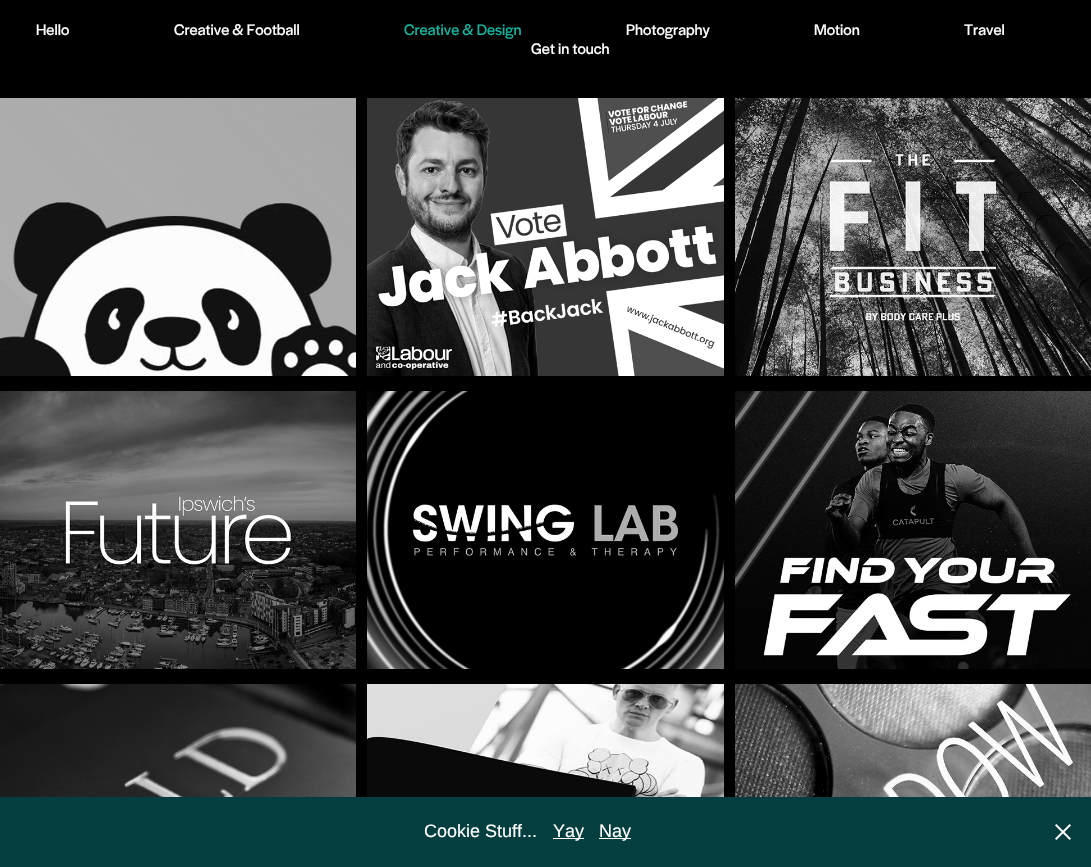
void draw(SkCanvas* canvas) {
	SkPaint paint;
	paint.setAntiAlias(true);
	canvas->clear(0xff000000);
	SkFont f1(fontMgr->matchFamilyStyle("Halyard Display", SkFontStyle::Normal()), 16);
	f1.setSubpixel(true);
	paint.setColor(0xffffffff);
	canvas->drawString("Hello", 36, 35, f1, paint);
	canvas->drawString("Creative & Football", 174, 35, f1, paint);
	paint.setColor(0xff13b5a0);
	canvas->drawString("Creative & Design", 404, 35, f1, paint);
	paint.setColor(0xffffffff);
	canvas->drawString("Photography", 626, 35, f1, paint);
	canvas->drawString("Motion", 814, 35, f1, paint);
	canvas->drawString("Travel", 964, 35, f1, paint);
	canvas->drawString("Get in touch", 531, 54, f1, paint);
	canvas->drawImageRect(SkImages::DeferredFromEncodedData(SkData::MakeFromFileName("img1.png")), SkRect::MakeXYWH(0, 98, 356, 278), SkSamplingOptions());
	canvas->drawImageRect(SkImages::DeferredFromEncodedData(SkData::MakeFromFileName("img2.png")), SkRect::MakeXYWH(367, 98, 357, 278), SkSamplingOptions());
	canvas->drawImageRect(SkImages::DeferredFromEncodedData(SkData::MakeFromFileName("img3.png")), SkRect::MakeXYWH(735, 98, 356, 278), SkSamplingOptions());
	canvas->drawImageRect(SkImages::DeferredFromEncodedData(SkData::MakeFromFileName("img4.png")), SkRect::MakeXYWH(0, 391, 356, 278), SkSamplingOptions());
	canvas->drawImageRect(SkImages::DeferredFromEncodedData(SkData::MakeFromFileName("img5.png")), SkRect::MakeXYWH(367, 391, 357, 278), SkSamplingOptions());
	canvas->drawImageRect(SkImages::DeferredFromEncodedData(SkData::MakeFromFileName("img6.png")), SkRect::MakeXYWH(735, 391, 356, 278), SkSamplingOptions());
	canvas->drawImageRect(SkImages::DeferredFromEncodedData(SkData::MakeFromFileName("img7.png")), SkRect::MakeXYWH(0, 684, 356, 113), SkSamplingOptions());
	canvas->drawImageRect(SkImages::DeferredFromEncodedData(SkData::MakeFromFileName("img8.png")), SkRect::MakeXYWH(367, 684, 357, 113), SkSamplingOptions());
	canvas->drawImageRect(SkImages::DeferredFromEncodedData(SkData::MakeFromFileName("img9.png")), SkRect::MakeXYWH(735, 684, 356, 113), SkSamplingOptions());
	paint.setColor(0xff053e3e);
	canvas->drawRect(SkRect::MakeXYWH(0, 797, 1091, 70), paint);
	SkFont f2(fontMgr->matchFamilyStyle("Liberation Sans", SkFontStyle::Normal()), 18);
	f2.setSubpixel(true);
	paint.setColor(0xffffffff);
	canvas->drawString("Cookie Stuff...", 424, 837, f2, paint);
	canvas->drawRect(SkRect::MakeXYWH(553, 838, 31, 1), paint);
	canvas->drawString("Yay", 553, 837, f2, paint);
	canvas->drawRect(SkRect::MakeXYWH(599, 838, 32, 1), paint);
	canvas->drawString("Nay", 599, 837, f2, paint);
	canvas->drawImageRect(SkImages::DeferredFromEncodedData(SkData::MakeFromFileName("img10.png")), SkRect::MakeXYWH(1055, 824, 16, 16), SkSamplingOptions());
}
